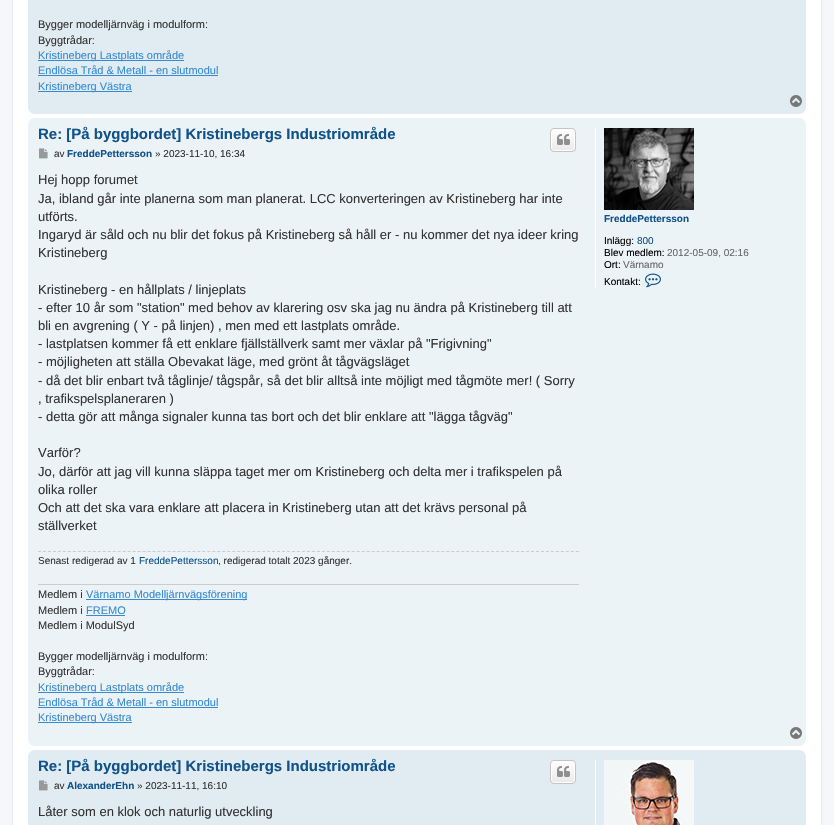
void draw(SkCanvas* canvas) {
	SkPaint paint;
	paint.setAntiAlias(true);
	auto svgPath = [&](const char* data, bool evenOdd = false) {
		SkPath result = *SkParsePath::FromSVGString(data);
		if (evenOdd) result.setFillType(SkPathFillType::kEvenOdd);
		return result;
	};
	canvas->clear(0xfff5f7fa);
	paint.setColor(0xffffffff);
	canvas->drawRect(SkRect::MakeXYWH(12.5, -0.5, 809, 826), paint);
	paint.setStroke(true);
	paint.setStrokeWidth(1);
	paint.setColor(0xffe6e9ed);
	canvas->drawRect(SkRect::MakeXYWH(12.5, -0.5, 809, 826), paint);
	paint.setStroke(false);
	paint.setColor(0xffe1ebf2);
	canvas->drawRoundRect(SkRect::MakeXYWH(28, -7, 778, 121), 7, 7, paint);
	SkFont f1(fontMgr->matchFamilyStyle("Liberation Sans", SkFontStyle::Normal()), 11);
	f1.setSubpixel(true);
	paint.setColor(0xff333333);
	canvas->drawString("Bygger modelljärnväg i modulform:", 38, 28, f1, paint);
	canvas->drawString("Byggtrådar:", 38, 44, f1, paint);
	paint.setColor(0xff368ad2);
	canvas->drawRect(SkRect::MakeXYWH(38, 60, 146, 1), paint);
	canvas->drawString("Kristineberg Lastplats område", 38, 59, f1, paint);
	canvas->drawString("Endlösa Tråd & Metall - en slutmodul", 38, 74, f1, paint);
	canvas->drawRect(SkRect::MakeXYWH(38, 75, 180, 1), paint);
	canvas->drawRect(SkRect::MakeXYWH(38, 91, 94, 1), paint);
	canvas->drawString("Kristineberg Västra", 38, 90, f1, paint);
	canvas->drawImageRect(SkImages::DeferredFromEncodedData(SkData::MakeFromFileName("img1.png")), SkRect::MakeXYWH(790, 95, 12, 12), SkSamplingOptions());
	paint.setColor(0xffecf3f7);
	canvas->drawRoundRect(SkRect::MakeXYWH(28, 118, 778, 628), 7, 7, paint);
	SkFont f2(fontMgr->matchFamilyStyle("Liberation Sans", SkFontStyle::Bold()), 15);
	f2.setSubpixel(true);
	paint.setColor(0xff105289);
	canvas->drawString("Re: [På byggbordet] Kristinebergs Industriområde", 38, 139, f2, paint);
	canvas->save();
	canvas->clipPath(svgPath("M554 128H572C574 128 576 130 576 132V148C576 150 574 152 572 152H554C552 152 550 150 550 148V132C550 130 552 128 554 128Z"), true);
	{
		const SkColor colors[] = {0xffffffff, 0xffe9e9e9};
		const float stops[] = {0, 1};
		const SkPoint ends[] = {{563, 129}, {563, 151}};
		paint.setShader(SkGradientShader::MakeLinear(ends, colors, stops, 2, SkTileMode::kClamp));
		paint.setAlpha(255);
	}
	canvas->drawRect(SkRect::MakeXYWH(550, 129, 26, 22), paint);
	canvas->restore();
	paint.setStroke(true);
	paint.setShader(nullptr);
	paint.setColor(0xffffffff);
	canvas->drawRoundRect(SkRect::MakeXYWH(551.5, 129.5, 23, 21), 2.5, 2.5, paint);
	paint.setColor(0xffc7c3bf);
	canvas->drawRoundRect(SkRect::MakeXYWH(550.5, 128.5, 25, 23), 3.5, 3.5, paint);
	canvas->drawImageRect(SkImages::DeferredFromEncodedData(SkData::MakeFromFileName("img2.png")), SkRect::MakeXYWH(557, 134, 13, 11), SkSamplingOptions());
	canvas->drawImageRect(SkImages::DeferredFromEncodedData(SkData::MakeFromFileName("img3.png")), SkRect::MakeXYWH(39, 148, 9, 11), SkSamplingOptions());
	SkFont f3(fontMgr->matchFamilyStyle("Liberation Sans", SkFontStyle::Normal()), 10);
	f3.setSubpixel(true);
	paint.setStroke(false);
	paint.setColor(0xff333333);
	canvas->drawString("av", 54, 157, f3, paint);
	SkFont f4(fontMgr->matchFamilyStyle("Liberation Sans", SkFontStyle::Bold()), 10);
	f4.setSubpixel(true);
	paint.setColor(0xff105289);
	canvas->drawString("FreddePettersson", 67, 157, f4, paint);
	paint.setColor(0xff333333);
	canvas->drawString("» 2023-11-10, 16:34", 155, 157, f3, paint);
	SkFont f5(fontMgr->matchFamilyStyle("Liberation Sans", SkFontStyle::Normal()), 13);
	f5.setSubpixel(true);
	canvas->drawString("Hej hopp forumet", 38, 184, f5, paint);
	canvas->drawString("Ja, ibland går inte planerna som man planerat. LCC konverteringen av Kristineberg har inte", 38, 203, f5, paint);
	canvas->drawString("utförts.", 38, 221, f5, paint);
	canvas->drawString("Ingaryd är såld och nu blir det fokus på Kristineberg så håll er - nu kommer det nya ideer kring", 38, 239, f5, paint);
	canvas->drawString("Kristineberg", 38, 257, f5, paint);
	canvas->drawString("Kristineberg - en hållplats / linjeplats", 38, 294, f5, paint);
	canvas->drawString("- efter 10 år som \"station\" med behov av klarering osv ska jag nu ändra på Kristineberg till att", 38, 312, f5, paint);
	canvas->drawString("bli en avgrening ( Y - på linjen) , men med ett lastplats område.", 38, 330, f5, paint);
	canvas->drawString("- lastplatsen kommer få ett enklare fjällställverk samt mer växlar på \"Frigivning\"", 38, 348, f5, paint);
	canvas->drawString("- möjligheten att ställa Obevakat läge, med grönt åt tågvägsläget", 38, 366, f5, paint);
	canvas->drawString("- då det blir enbart två tåglinje/ tågspår, så det blir alltså inte möjligt med tågmöte mer! ( Sorry", 38, 385, f5, paint);
	canvas->drawString(", trafikspelsplaneraren )", 38, 403, f5, paint);
	canvas->drawString("- detta gör att många signaler kunna tas bort och det blir enklare att \"lägga tågväg\"", 38, 421, f5, paint);
	canvas->drawString("Varför?", 38, 457, f5, paint);
	canvas->drawString("Jo, därför att jag vill kunna släppa taget mer om Kristineberg och delta mer i trafikspelen på", 38, 476, f5, paint);
	canvas->drawString("olika roller", 38, 494, f5, paint);
	canvas->drawString("Och att det ska vara enklare att placera in Kristineberg utan att det krävs personal på", 38, 512, f5, paint);
	canvas->drawString("ställverket", 38, 530, f5, paint);
	paint.setStroke(true);
	paint.setColor(0xffcccccc);
	paint.setPathEffect(SkDashPathEffect::Make({{3, 1.98f}}, 0));
	canvas->drawPath(svgPath("M38 551.5H579"), paint);
	paint.setPathEffect(nullptr);
	paint.setStroke(false);
	paint.setColor(0xff333333);
	canvas->drawString("Senast redigerad av 1", 38, 564, f3, paint);
	paint.setColor(0xff105289);
	canvas->drawString("FreddePettersson", 139, 564, f3, paint);
	paint.setColor(0xff333333);
	canvas->drawString(", redigerad totalt 2023 gånger.", 218, 564, f3, paint);
	paint.setColor(0xffcccccc);
	canvas->drawRect(SkRect::MakeXYWH(38, 584, 541, 1), paint);
	paint.setColor(0xff333333);
	canvas->drawString("Medlem i", 38, 598, f1, paint);
	paint.setColor(0xff368ad2);
	canvas->drawRect(SkRect::MakeXYWH(86, 599, 161, 1), paint);
	canvas->drawString("Värnamo Modelljärnvägsförening", 86, 598, f1, paint);
	paint.setColor(0xff333333);
	canvas->drawString("Medlem i", 38, 614, f1, paint);
	paint.setColor(0xff368ad2);
	canvas->drawString("FREMO", 86, 614, f1, paint);
	canvas->drawRect(SkRect::MakeXYWH(86, 615, 39, 1), paint);
	paint.setColor(0xff333333);
	canvas->drawString("Medlem i ModulSyd", 38, 629, f1, paint);
	canvas->drawString("Bygger modelljärnväg i modulform:", 38, 660, f1, paint);
	canvas->drawString("Byggtrådar:", 38, 675, f1, paint);
	paint.setColor(0xff368ad2);
	canvas->drawRect(SkRect::MakeXYWH(38, 692, 146, 1), paint);
	canvas->drawString("Kristineberg Lastplats område", 38, 691, f1, paint);
	canvas->drawString("Endlösa Tråd & Metall - en slutmodul", 38, 706, f1, paint);
	canvas->drawRect(SkRect::MakeXYWH(38, 707, 180, 1), paint);
	canvas->drawRect(SkRect::MakeXYWH(38, 722, 94, 1), paint);
	canvas->drawString("Kristineberg Västra", 38, 721, f1, paint);
	paint.setColor(0xffffffff);
	canvas->drawRect(SkRect::MakeXYWH(595, 128, 1, 160), paint);
	canvas->drawImageRect(SkImages::DeferredFromEncodedData(SkData::MakeFromFileName("img4.png")), SkRect::MakeXYWH(604, 128, 90, 82), SkSamplingOptions());
	paint.setColor(0xff105289);
	canvas->drawString("FreddePettersson", 604, 222, f4, paint);
	paint.setColor(0xff000000);
	canvas->drawString("Inlägg:", 604, 244, f3, paint);
	paint.setColor(0xff105289);
	canvas->drawString("800", 637, 244, f3, paint);
	paint.setColor(0xff000000);
	canvas->drawString("Blev medlem:", 604, 256, f3, paint);
	paint.setColor(0xff666666);
	canvas->drawString("2012-05-09, 02:16", 667, 256, f3, paint);
	paint.setColor(0xff000000);
	canvas->drawString("Ort:", 604, 268, f3, paint);
	paint.setColor(0xff666666);
	canvas->drawString("Värnamo", 623, 268, f3, paint);
	paint.setColor(0xff000000);
	canvas->drawString("Kontakt:", 604, 285, f3, paint);
	canvas->drawImageRect(SkImages::DeferredFromEncodedData(SkData::MakeFromFileName("img5.png")), SkRect::MakeXYWH(645, 273, 16, 15), SkSamplingOptions());
	canvas->drawImageRect(SkImages::DeferredFromEncodedData(SkData::MakeFromFileName("img6.png")), SkRect::MakeXYWH(790, 727, 12, 12), SkSamplingOptions());
	paint.setColor(0xffe1ebf2);
	canvas->drawRoundRect(SkRect::MakeXYWH(28, 750, 778, 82), 7, 7, paint);
	paint.setColor(0xff105289);
	canvas->drawString("Re: [På byggbordet] Kristinebergs Industriområde", 38, 771, f2, paint);
	canvas->save();
	canvas->clipPath(svgPath("M554 760H572C574 760 576 762 576 764V780C576 782 574 784 572 784H554C552 784 550 782 550 780V764C550 762 552 760 554 760Z"), true);
	{
		const SkColor colors[] = {0xffffffff, 0xffe9e9e9};
		const float stops[] = {0, 1};
		const SkPoint ends[] = {{563, 761}, {563, 783}};
		paint.setShader(SkGradientShader::MakeLinear(ends, colors, stops, 2, SkTileMode::kClamp));
		paint.setAlpha(255);
	}
	canvas->drawRect(SkRect::MakeXYWH(550, 761, 26, 22), paint);
	canvas->restore();
	paint.setStroke(true);
	paint.setShader(nullptr);
	paint.setColor(0xffffffff);
	canvas->drawRoundRect(SkRect::MakeXYWH(551.5, 761.5, 23, 21), 2.5, 2.5, paint);
	paint.setColor(0xffc7c3bf);
	canvas->drawRoundRect(SkRect::MakeXYWH(550.5, 760.5, 25, 23), 3.5, 3.5, paint);
	canvas->drawImageRect(SkImages::DeferredFromEncodedData(SkData::MakeFromFileName("img2.png")), SkRect::MakeXYWH(557, 766, 13, 11), SkSamplingOptions());
	canvas->drawImageRect(SkImages::DeferredFromEncodedData(SkData::MakeFromFileName("img7.png")), SkRect::MakeXYWH(39, 780, 9, 11), SkSamplingOptions());
	paint.setStroke(false);
	paint.setColor(0xff333333);
	canvas->drawString("av", 54, 789, f3, paint);
	paint.setColor(0xff105289);
	canvas->drawString("AlexanderEhn", 67, 789, f4, paint);
	paint.setColor(0xff333333);
	canvas->drawString("» 2023-11-11, 16:10", 137, 789, f3, paint);
	canvas->drawString("Låter som en klok och naturlig utveckling", 38, 816, f5, paint);
	paint.setColor(0xffffffff);
	canvas->drawRect(SkRect::MakeXYWH(595, 760, 1, 65), paint);
	canvas->drawImageRect(SkImages::DeferredFromEncodedData(SkData::MakeFromFileName("img8.png")), SkRect::MakeXYWH(604, 760, 90, 65), SkSamplingOptions());
}
